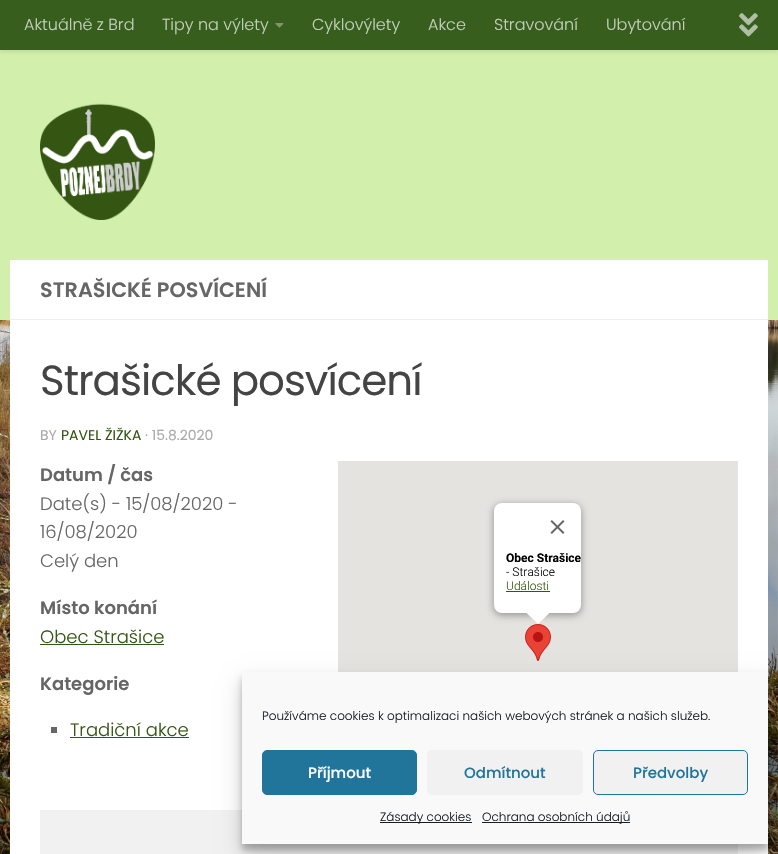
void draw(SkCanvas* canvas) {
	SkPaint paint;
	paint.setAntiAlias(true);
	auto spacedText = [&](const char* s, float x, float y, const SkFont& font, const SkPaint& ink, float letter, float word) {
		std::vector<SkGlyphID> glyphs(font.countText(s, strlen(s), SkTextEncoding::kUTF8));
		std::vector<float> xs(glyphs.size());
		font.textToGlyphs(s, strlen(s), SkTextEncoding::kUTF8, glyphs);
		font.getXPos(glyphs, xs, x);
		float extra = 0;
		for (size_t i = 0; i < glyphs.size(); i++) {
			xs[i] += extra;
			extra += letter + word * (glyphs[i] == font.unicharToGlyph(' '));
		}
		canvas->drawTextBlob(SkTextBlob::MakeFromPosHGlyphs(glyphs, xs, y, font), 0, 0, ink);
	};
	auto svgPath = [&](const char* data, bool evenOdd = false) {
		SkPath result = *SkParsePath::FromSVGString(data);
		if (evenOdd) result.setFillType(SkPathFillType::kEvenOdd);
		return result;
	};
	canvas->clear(0xffffffff);
	canvas->drawImageRect(SkImages::DeferredFromEncodedData(SkData::MakeFromFileName("img1.png")), SkRect::MakeXYWH(0, 320, 778, 534), SkSamplingOptions());
	paint.setColor(0xffd2efac);
	canvas->drawRect(SkRect::MakeXYWH(0, 51, 778, 269), paint);
	paint.setColor(0xffd9f1b8);
	canvas->drawRect(SkRect::MakeXYWH(0, 50, 778, 1), paint);
	paint.setColor(0x33000000);
	paint.setMaskFilter(SkMaskFilter::MakeBlur(kNormal_SkBlurStyle, 2.5));
	canvas->drawRect(SkRect::MakeXYWH(0, 0, 778, 50), paint);
	paint.setMaskFilter(nullptr);
	paint.setColor(0xff375e1d);
	canvas->drawRect(SkRect::MakeXYWH(0, 0, 778, 50), paint);
	SkFont f1(fontMgr->matchFamilyStyle("Poppins", SkFontStyle(300, SkFontStyle::kNormal_Width, SkFontStyle::kUpright_Slant)), 16);
	f1.setSubpixel(true);
	paint.setColor(0xffc3cfbb);
	canvas->drawString("Aktuálně z Brd", 24, 30, f1, paint);
	canvas->drawString("Tipy na výlety", 162, 30, f1, paint);
	canvas->drawImageRect(SkImages::DeferredFromEncodedData(SkData::MakeFromFileName("img2.png")), SkRect::MakeXYWH(275, 23, 9, 5), SkSamplingOptions());
	canvas->drawString("Cyklovýlety", 312, 30, f1, paint);
	canvas->drawString("Akce", 428, 30, f1, paint);
	canvas->drawString("Stravování", 494, 30, f1, paint);
	canvas->drawString("Ubytování", 606, 30, f1, paint);
	canvas->drawImageRect(SkImages::DeferredFromEncodedData(SkData::MakeFromFileName("img3.png")), SkRect::MakeXYWH(739, 13, 19, 24), SkSamplingOptions());
	canvas->drawImageRect(SkImages::DeferredFromEncodedData(SkData::MakeFromFileName("img4.png")), SkRect::MakeXYWH(40, 103, 115, 117), SkSamplingOptions());
	paint.setColor(0xffffffff);
	canvas->drawRect(SkRect::MakeXYWH(10, 260, 758, 594), paint);
	paint.setColor(0xffeeeeee);
	canvas->drawRect(SkRect::MakeXYWH(10, 319, 758, 1), paint);
	SkFont f2(fontMgr->matchFamilyStyle("Poppins", SkFontStyle(600, SkFontStyle::kNormal_Width, SkFontStyle::kUpright_Slant)), 20.75);
	f2.setSubpixel(true);
	paint.setColor(0xff666666);
	canvas->drawString("STRAŠICKÉ POSVÍCENÍ", 40, 297, f2, paint);
	SkFont f3(fontMgr->matchFamilyStyle("Poppins", SkFontStyle::Normal()), 42);
	f3.setSubpixel(true);
	paint.setColor(0xff444444);
	spacedText("Strašické posvícení", 40, 395, f3, paint, -1, 0);
	SkFont f4(fontMgr->matchFamilyStyle("Poppins", SkFontStyle::Normal()), 14);
	f4.setSubpixel(true);
	paint.setColor(0xffaaaaaa);
	canvas->drawString("BY", 40, 440, f4, paint);
	paint.setColor(0xff345612);
	canvas->drawString("PAVEL ŽIŽKA", 61, 440, f4, paint);
	paint.setColor(0xffaaaaaa);
	canvas->drawString("· 15.8.2020", 145, 440, f4, paint);
	SkFont f5(fontMgr->matchFamilyStyle("Poppins", SkFontStyle(600, SkFontStyle::kNormal_Width, SkFontStyle::kUpright_Slant)), 18);
	f5.setSubpixel(true);
	paint.setColor(0xff666666);
	canvas->drawString("Datum / čas", 40, 481, f5, paint);
	SkFont f6(fontMgr->matchFamilyStyle("Poppins", SkFontStyle(300, SkFontStyle::kNormal_Width, SkFontStyle::kUpright_Slant)), 18);
	f6.setSubpixel(true);
	canvas->drawString("Date(s) - 15/08/2020 -", 40, 510, f6, paint);
	canvas->drawString("16/08/2020", 40, 538, f6, paint);
	canvas->drawString("Celý den", 40, 567, f6, paint);
	paint.setColor(0xffe5e3df);
	canvas->drawRect(SkRect::MakeXYWH(338, 461, 400, 211), paint);
	canvas->drawImageRect(SkImages::DeferredFromEncodedData(SkData::MakeFromFileName("img6.png")), SkRect::MakeXYWH(525, 624, 26, 37), SkSamplingOptions());
	paint.setColor(0x4d000000);
	paint.setMaskFilter(SkMaskFilter::MakeBlur(kNormal_SkBlurStyle, 3.5));
	canvas->drawRoundRect(SkRect::MakeXYWH(493, 504, 89, 112), 9, 9, paint);
	paint.setMaskFilter(nullptr);
	paint.setColor(0xffffffff);
	canvas->drawRoundRect(SkRect::MakeXYWH(494, 503, 87, 110), 8, 8, paint);
	canvas->drawImageRect(SkImages::DeferredFromEncodedData(SkData::MakeFromFileName("img5.png")), SkRect::MakeXYWH(550, 520, 15, 14), SkSamplingOptions());
	SkFont f7(fontMgr->matchFamilyStyle("Roboto", SkFontStyle::Bold()), 12);
	f7.setSubpixel(true);
	paint.setColor(0xff000000);
	canvas->drawString("Obec Strašice", 506, 562, f7, paint);
	SkFont f8(fontMgr->matchFamilyStyle("Roboto", SkFontStyle(300, SkFontStyle::kNormal_Width, SkFontStyle::kUpright_Slant)), 12);
	f8.setSubpixel(true);
	canvas->drawString("- Strašice", 506, 576, f8, paint);
	paint.setColor(0xff345612);
	canvas->drawString("Události", 506, 590, f8, paint);
	canvas->drawRect(SkRect::MakeXYWH(506, 591, 44, 1), paint);
	paint.setColor(0xffffffff);
	canvas->drawPath(svgPath("M526 612V612.5L538 624L550.5 612Z"), paint);
	paint.setColor(0xff666666);
	canvas->drawString("Místo konání", 40, 614, f5, paint);
	paint.setColor(0xff345612);
	canvas->drawString("Obec Strašice", 40, 643, f6, paint);
	canvas->drawRect(SkRect::MakeXYWH(40, 644, 124, 1), paint);
	paint.setColor(0xff666666);
	canvas->drawString("Kategorie", 40, 690, f5, paint);
	canvas->drawRect(SkRect::MakeXYWH(51, 727, 6, 6), paint);
	paint.setColor(0xff345612);
	canvas->drawString("Tradiční akce", 70, 736, f6, paint);
	canvas->drawRect(SkRect::MakeXYWH(70, 737, 119, 1), paint);
	paint.setColor(0xfff1f1f1);
	canvas->drawRect(SkRect::MakeXYWH(40, 810, 698, 44), paint);
	paint.setColor(0x3b000000);
	paint.setMaskFilter(SkMaskFilter::MakeBlur(kNormal_SkBlurStyle, 3));
	canvas->drawRect(SkRect::MakeXYWH(242, 678, 526, 172), paint);
	paint.setMaskFilter(nullptr);
	paint.setColor(0x30000000);
	paint.setMaskFilter(SkMaskFilter::MakeBlur(kNormal_SkBlurStyle, 10));
	canvas->drawRect(SkRect::MakeXYWH(242, 682, 526, 172), paint);
	paint.setMaskFilter(nullptr);
	paint.setColor(0xfff9f9f9);
	canvas->drawRect(SkRect::MakeXYWH(242, 672, 526, 172), paint);
	SkFont f9(fontMgr->matchFamilyStyle("Poppins", SkFontStyle(300, SkFontStyle::kNormal_Width, SkFontStyle::kUpright_Slant)), 12);
	f9.setSubpixel(true);
	paint.setColor(0xff191e23);
	canvas->drawString("Používáme cookies k optimalizaci našich webových stránek a našich služeb.", 262, 720, f9, paint);
	paint.setColor(0xff21759b);
	canvas->drawRoundRect(SkRect::MakeXYWH(262.5, 750.5, 154, 44), 4.5, 4.5, paint);
	paint.setStroke(true);
	paint.setStrokeWidth(1);
	canvas->drawRoundRect(SkRect::MakeXYWH(262.5, 750.5, 154, 44), 4.5, 4.5, paint);
	SkFont f10(fontMgr->matchFamilyStyle("Poppins", SkFontStyle(500, SkFontStyle::kNormal_Width, SkFontStyle::kUpright_Slant)), 15);
	f10.setSubpixel(true);
	paint.setStroke(false);
	paint.setColor(0xffffffff);
	canvas->drawString("Příjmout", 308, 778, f10, paint);
	paint.setColor(0xfff1f1f1);
	canvas->drawRoundRect(SkRect::MakeXYWH(427, 750, 156, 45), 5, 5, paint);
	paint.setColor(0xff21759b);
	canvas->drawString("Odmítnout", 464, 778, f10, paint);
	paint.setColor(0xfff1f1f1);
	canvas->drawRoundRect(SkRect::MakeXYWH(593.5, 750.5, 154, 44), 4.5, 4.5, paint);
	paint.setStroke(true);
	paint.setColor(0xff21759b);
	canvas->drawRoundRect(SkRect::MakeXYWH(593.5, 750.5, 154, 44), 4.5, 4.5, paint);
	paint.setStroke(false);
	canvas->drawString("Předvolby", 633, 778, f10, paint);
	paint.setColor(0xff191e23);
	canvas->drawRect(SkRect::MakeXYWH(380, 822, 92, 1), paint);
	canvas->drawString("Zásady cookies", 380, 821, f9, paint);
	canvas->drawRect(SkRect::MakeXYWH(482, 822, 148, 1), paint);
	canvas->drawString("Ochrana osobních údajů", 482, 821, f9, paint);
}
